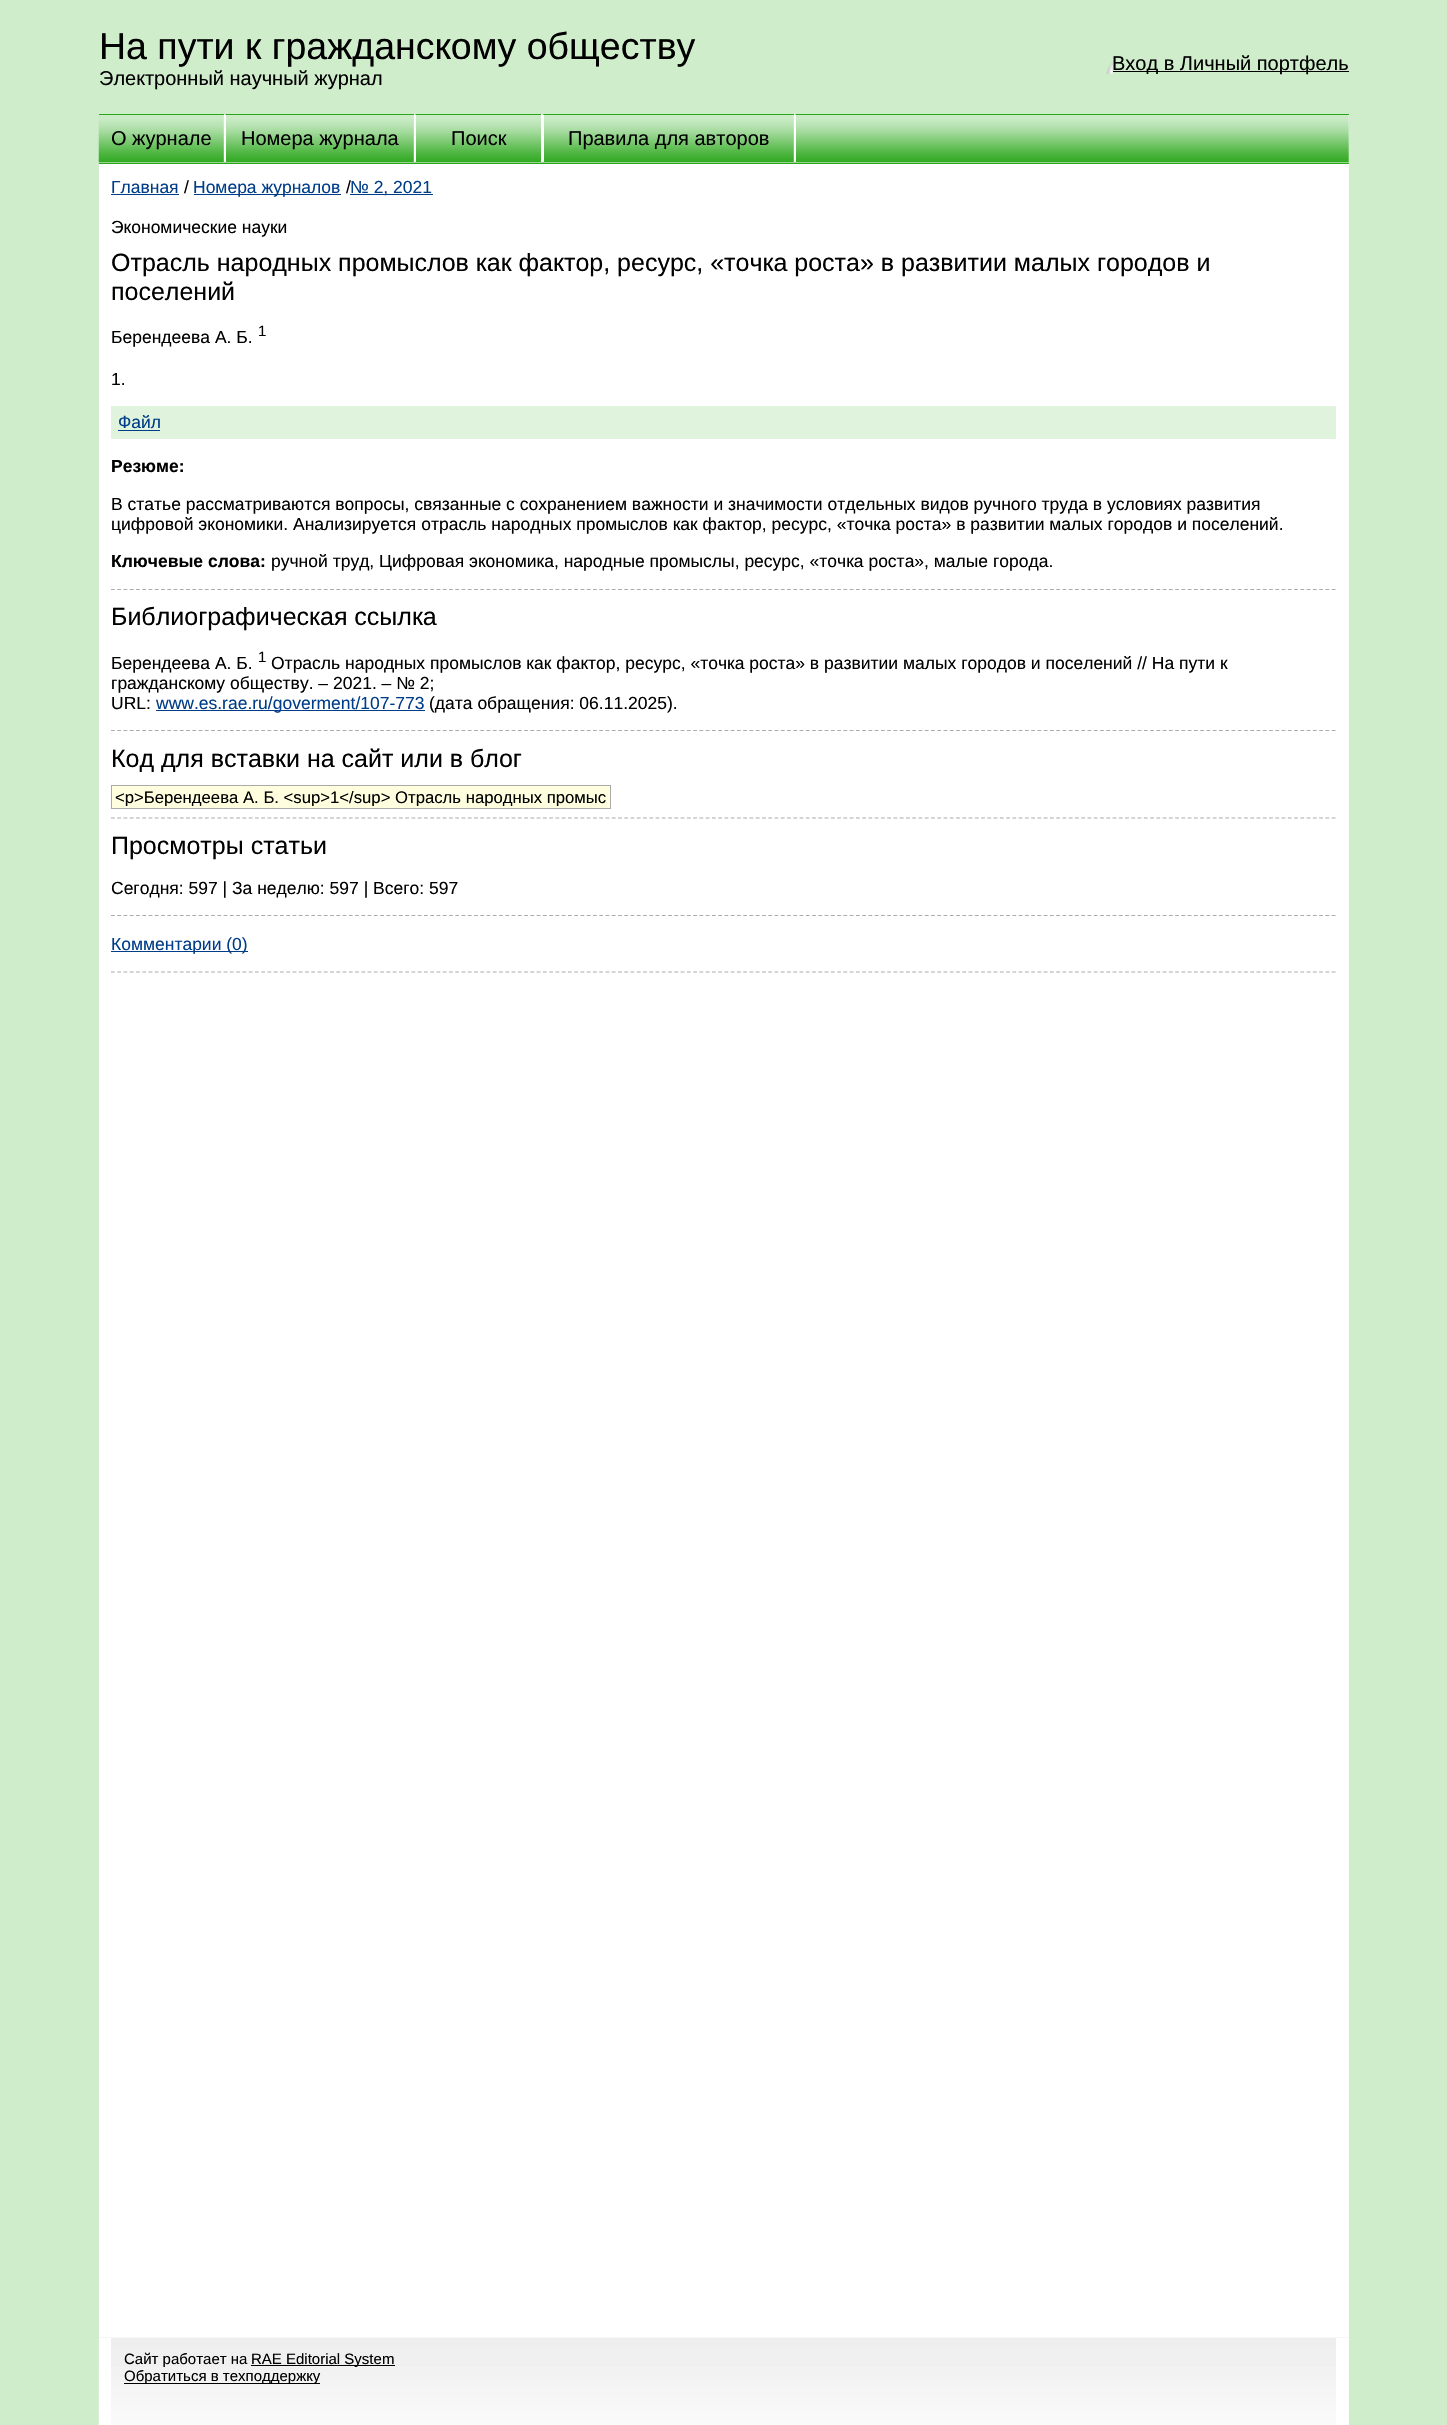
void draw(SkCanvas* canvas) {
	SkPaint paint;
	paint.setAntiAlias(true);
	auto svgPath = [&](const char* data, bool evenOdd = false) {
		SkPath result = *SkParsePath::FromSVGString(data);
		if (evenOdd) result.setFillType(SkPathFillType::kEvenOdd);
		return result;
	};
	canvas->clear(0xffcfeccb);
	SkFont f1(fontMgr->matchFamilyStyle("Liberation Sans", SkFontStyle::Normal()), 37.5);
	f1.setSubpixel(true);
	paint.setColor(0xff000000);
	canvas->drawString("На пути к гражданскому обществу", 99, 59, f1, paint);
	SkFont f2(fontMgr->matchFamilyStyle("Liberation Sans", SkFontStyle::Normal()), 20);
	f2.setSubpixel(true);
	canvas->drawString("Электронный научный журнал", 99, 85, f2, paint);
	canvas->drawImageRect(SkImages::DeferredFromEncodedData(SkData::MakeFromFileName("img1.png")), SkRect::MakeXYWH(1106, 62, 7, 12), SkSamplingOptions());
	canvas->drawRect(SkRect::MakeXYWH(1113, 71, 236, 1), paint);
	canvas->drawString("Вход в Личный портфель", 1112, 70, f2, paint);
	paint.setColor(0xffffffff);
	canvas->drawRect(SkRect::MakeXYWH(99, 114, 1250, 2224), paint);
	paint.setColor(0xff29a619);
	canvas->drawRect(SkRect::MakeXYWH(99, 163, 1250, 1), paint);
	canvas->drawImageRect(SkImages::DeferredFromEncodedData(SkData::MakeFromFileName("img2.png")), SkRect::MakeXYWH(98, 115, 126, 48), SkSamplingOptions());
	canvas->drawRect(SkRect::MakeXYWH(99, 114, 125, 1), paint);
	paint.setColor(0xff000000);
	canvas->drawString("О журнале", 111, 145, f2, paint);
	canvas->drawImageRect(SkImages::DeferredFromEncodedData(SkData::MakeFromFileName("img3.png")), SkRect::MakeXYWH(223, 115, 191, 48), SkSamplingOptions());
	paint.setColor(0xff29a619);
	canvas->drawPath(svgPath("M224 114H414V115H226Z"), paint);
	paint.setColor(0xffffffff);
	canvas->drawPath(svgPath("M224 162V114L226 115V162Z"), paint);
	paint.setColor(0xff000000);
	canvas->drawString("Номера журнала", 241, 145, f2, paint);
	canvas->drawImageRect(SkImages::DeferredFromEncodedData(SkData::MakeFromFileName("img4.png")), SkRect::MakeXYWH(413, 115, 129, 48), SkSamplingOptions());
	paint.setColor(0xff29a619);
	canvas->drawPath(svgPath("M414 114H541V115H416Z"), paint);
	paint.setColor(0xffffffff);
	canvas->drawPath(svgPath("M414 162V114L416 115V162Z"), paint);
	paint.setColor(0xff000000);
	canvas->drawString("Поиск", 451, 145, f2, paint);
	canvas->drawImageRect(SkImages::DeferredFromEncodedData(SkData::MakeFromFileName("img5.png")), SkRect::MakeXYWH(541, 115, 253, 48), SkSamplingOptions());
	paint.setColor(0xff29a619);
	canvas->drawPath(svgPath("M541 114H794V115H544Z"), paint);
	paint.setColor(0xffffffff);
	canvas->drawPath(svgPath("M541 162V114L544 115V162Z"), paint);
	paint.setColor(0xff000000);
	canvas->drawString("Правила для авторов", 568, 145, f2, paint);
	canvas->drawImageRect(SkImages::DeferredFromEncodedData(SkData::MakeFromFileName("img6.png")), SkRect::MakeXYWH(793, 115, 556, 48), SkSamplingOptions());
	paint.setColor(0xff29a619);
	canvas->drawPath(svgPath("M794 114H1349V115H796Z"), paint);
	paint.setColor(0xffffffff);
	canvas->drawPath(svgPath("M794 162V114L796 115V162Z"), paint);
	SkFont f3(fontMgr->matchFamilyStyle("Liberation Sans", SkFontStyle::Normal()), 17.5);
	f3.setSubpixel(true);
	paint.setColor(0xff003d88);
	canvas->drawString("Главная", 111, 193, f3, paint);
	canvas->drawRect(SkRect::MakeXYWH(111, 194, 68, 1), paint);
	paint.setColor(0xff000000);
	canvas->drawString("/", 184, 193, f3, paint);
	paint.setColor(0xff003d88);
	canvas->drawRect(SkRect::MakeXYWH(194, 194, 147, 1), paint);
	canvas->drawString("Номера журналов", 193, 193, f3, paint);
	paint.setColor(0xff000000);
	canvas->drawString("/", 346, 193, f3, paint);
	paint.setColor(0xff003d88);
	canvas->drawRect(SkRect::MakeXYWH(350, 194, 83, 1), paint);
	canvas->drawString("№ 2, 2021", 350, 193, f3, paint);
	paint.setColor(0xff000000);
	canvas->drawString("Экономические науки", 111, 233, f3, paint);
	SkFont f4(fontMgr->matchFamilyStyle("Liberation Sans", SkFontStyle::Normal()), 25);
	f4.setSubpixel(true);
	canvas->drawString("Отрасль народных промыслов как фактор, ресурс, «точка роста» в развитии малых городов и", 111, 271, f4, paint);
	canvas->drawString("поселений", 111, 300, f4, paint);
	canvas->drawString("Берендеева А. Б.", 111, 343, f3, paint);
	SkFont f5(fontMgr->matchFamilyStyle("Liberation Sans", SkFontStyle::Normal()), 15);
	f5.setSubpixel(true);
	canvas->drawString("1", 258, 336, f5, paint);
	canvas->drawString("1.", 111, 385, f3, paint);
	paint.setColor(0xffdff3dd);
	canvas->drawRect(SkRect::MakeXYWH(111, 406, 1225, 33), paint);
	paint.setColor(0xff003d88);
	canvas->drawString("Файл", 118, 428, f3, paint);
	canvas->drawRect(SkRect::MakeXYWH(118, 430, 42, 1), paint);
	SkFont f6(fontMgr->matchFamilyStyle("Liberation Sans", SkFontStyle::Bold()), 17.5);
	f6.setSubpixel(true);
	paint.setColor(0xff000000);
	canvas->drawString("Резюме:", 111, 472, f6, paint);
	canvas->drawString("В статье рассматриваются вопросы, связанные с сохранением важности и значимости отдельных видов ручного труда в условиях развития", 111, 510, f3, paint);
	canvas->drawString("цифровой экономики. Анализируется отрасль народных промыслов как фактор, ресурс, «точка роста» в развитии малых городов и поселений.", 111, 530, f3, paint);
	canvas->drawString("Ключевые слова:", 111, 567, f6, paint);
	canvas->drawString("ручной труд, Цифровая экономика, народные промыслы, ресурс, «точка роста», малые города.", 271, 567, f3, paint);
	paint.setStroke(true);
	paint.setStrokeWidth(1.2);
	paint.setColor(0xffaaaaaa);
	paint.setPathEffect(SkDashPathEffect::Make({{3.75f, 2.51f}}, 0));
	canvas->drawPath(svgPath("M111 589.5H1336"), paint);
	paint.setPathEffect(nullptr);
	paint.setStroke(false);
	paint.setColor(0xff000000);
	canvas->drawString("Библиографическая ссылка", 111, 625, f4, paint);
	canvas->drawString("Берендеева А. Б.", 111, 669, f3, paint);
	canvas->drawString("1", 258, 662, f5, paint);
	canvas->drawString("Отрасль народных промыслов как фактор, ресурс, «точка роста» в развитии малых городов и поселений // На пути к", 271, 669, f3, paint);
	canvas->drawString("гражданскому обществу. – 2021. – № 2;", 111, 689, f3, paint);
	canvas->drawString("URL:", 111, 709, f3, paint);
	paint.setColor(0xff003d88);
	canvas->drawRect(SkRect::MakeXYWH(156, 710, 269, 1), paint);
	canvas->drawString("www.es.rae.ru/goverment/107-773", 156, 709, f3, paint);
	paint.setColor(0xff000000);
	canvas->drawString("(дата обращения: 06.11.2025).", 429, 709, f3, paint);
	paint.setStroke(true);
	paint.setColor(0xffaaaaaa);
	paint.setPathEffect(SkDashPathEffect::Make({{3.75f, 2.51f}}, 0));
	canvas->drawPath(svgPath("M111 730.5H1336"), paint);
	paint.setPathEffect(nullptr);
	paint.setStroke(false);
	paint.setColor(0xff000000);
	canvas->drawString("Код для вставки на сайт или в блог", 111, 767, f4, paint);
	paint.setColor(0xffffffe0);
	canvas->drawRect(SkRect::MakeXYWH(111.5, 785.5, 499, 23), paint);
	paint.setStroke(true);
	paint.setStrokeWidth(1);
	paint.setColor(0xffaaaaaa);
	canvas->drawRect(SkRect::MakeXYWH(111.5, 785.5, 499, 23), paint);
	canvas->save();
	canvas->clipRect(SkRect::MakeXYWH(115, 788, 493, 18));
	SkFont f7(fontMgr->matchFamilyStyle("Liberation Sans", SkFontStyle::Normal()), 16.7);
	f7.setSubpixel(true);
	paint.setStroke(false);
	paint.setColor(0xff000000);
	canvas->drawString("<p>Берендеева А. Б. <sup>1</sup> Отрасль народных промыс", 115, 803, f7, paint);
	canvas->restore();
	paint.setStroke(true);
	paint.setStrokeWidth(1.2);
	paint.setColor(0xffaaaaaa);
	paint.setPathEffect(SkDashPathEffect::Make({{3.75f, 2.51f}}, 0));
	canvas->drawPath(svgPath("M111 818H1336"), paint);
	paint.setPathEffect(nullptr);
	paint.setStroke(false);
	paint.setColor(0xff000000);
	canvas->drawString("Просмотры статьи", 111, 854, f4, paint);
	canvas->drawString("Сегодня: 597 | За неделю: 597 | Всего: 597", 111, 894, f3, paint);
	paint.setStroke(true);
	paint.setColor(0xffaaaaaa);
	paint.setPathEffect(SkDashPathEffect::Make({{3.75f, 2.51f}}, 0));
	canvas->drawPath(svgPath("M111 915.5H1336"), paint);
	paint.setPathEffect(nullptr);
	paint.setStroke(false);
	paint.setColor(0xff003d88);
	canvas->drawRect(SkRect::MakeXYWH(111, 951, 137, 1), paint);
	canvas->drawString("Комментарии (0)", 111, 950, f3, paint);
	paint.setStroke(true);
	paint.setColor(0xffaaaaaa);
	paint.setPathEffect(SkDashPathEffect::Make({{3.75f, 2.51f}}, 0));
	canvas->drawPath(svgPath("M111 972H1336"), paint);
	paint.setPathEffect(nullptr);
	canvas->drawImageRect(SkImages::DeferredFromEncodedData(SkData::MakeFromFileName("img7.png")), SkRect::MakeXYWH(98, 2337, 1251, 88), SkSamplingOptions());
	paint.setStroke(false);
	paint.setColor(0xffffffff);
	canvas->drawRect(SkRect::MakeXYWH(1336, 2338, 13, 87), paint);
	canvas->drawRect(SkRect::MakeXYWH(99, 2338, 12, 87), paint);
	paint.setColor(0xff000000);
	canvas->drawString("Сайт работает на", 124, 2364, f5, paint);
	canvas->drawRect(SkRect::MakeXYWH(251, 2365, 144, 1), paint);
	canvas->drawString("RAE Editorial System", 251, 2364, f5, paint);
	canvas->drawRect(SkRect::MakeXYWH(124, 2383, 196, 1), paint);
	canvas->drawString("Обратиться в техподдержку", 124, 2381, f5, paint);
}
